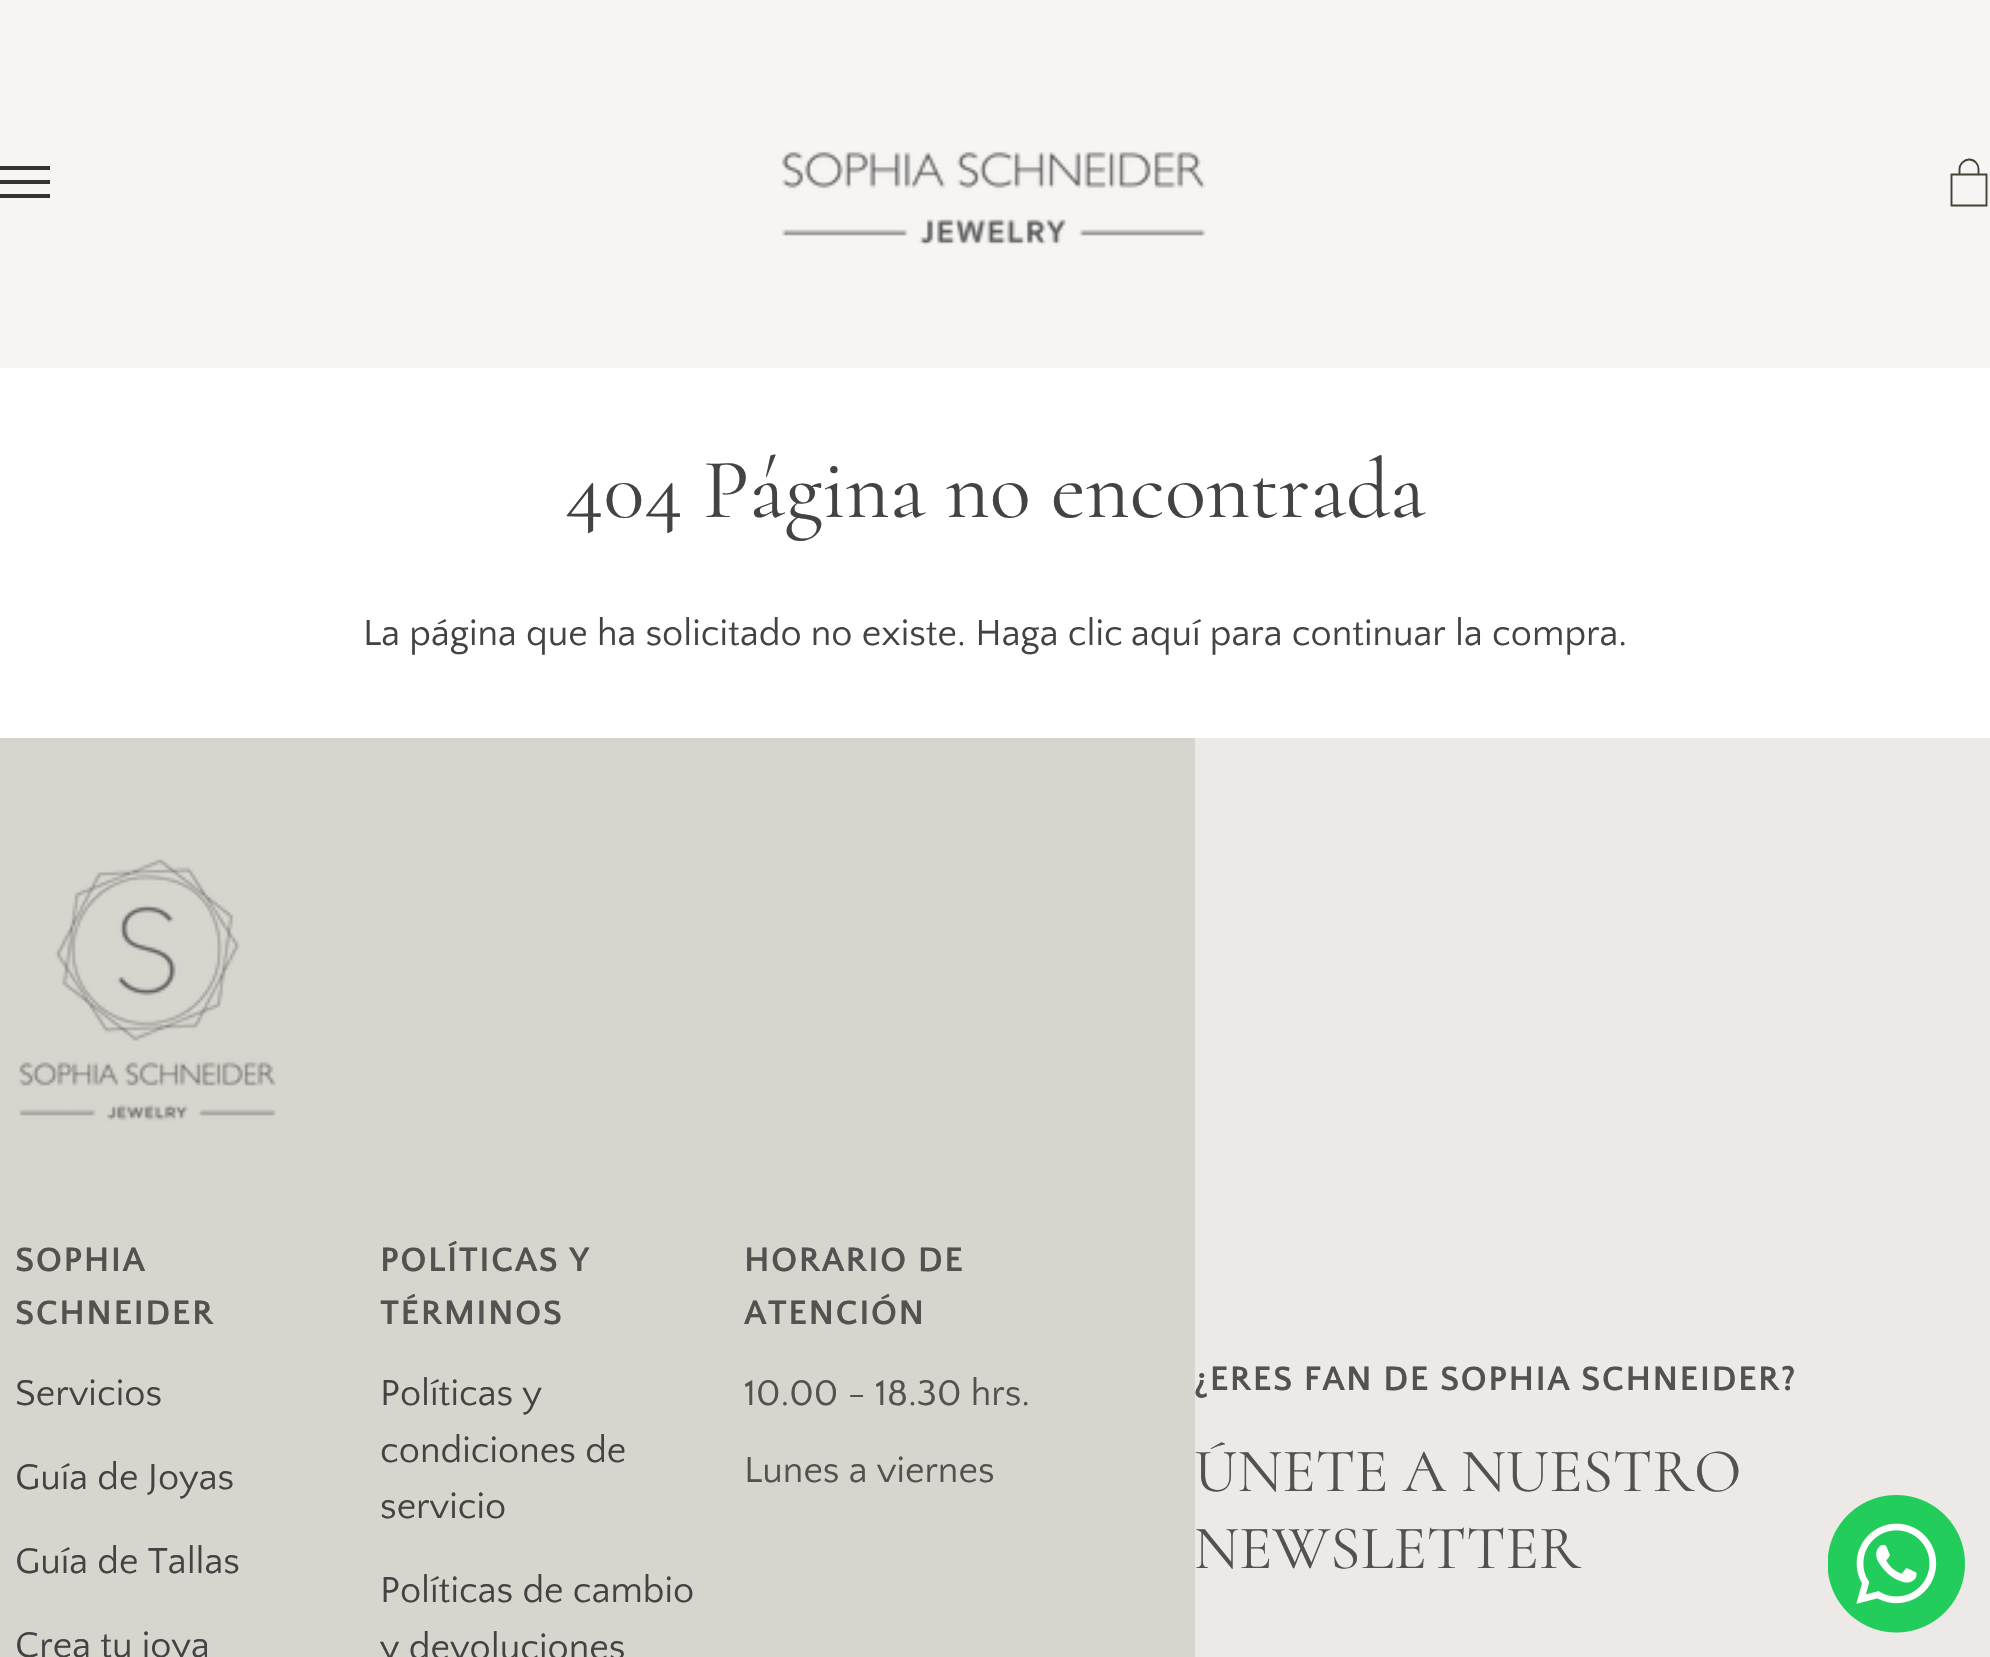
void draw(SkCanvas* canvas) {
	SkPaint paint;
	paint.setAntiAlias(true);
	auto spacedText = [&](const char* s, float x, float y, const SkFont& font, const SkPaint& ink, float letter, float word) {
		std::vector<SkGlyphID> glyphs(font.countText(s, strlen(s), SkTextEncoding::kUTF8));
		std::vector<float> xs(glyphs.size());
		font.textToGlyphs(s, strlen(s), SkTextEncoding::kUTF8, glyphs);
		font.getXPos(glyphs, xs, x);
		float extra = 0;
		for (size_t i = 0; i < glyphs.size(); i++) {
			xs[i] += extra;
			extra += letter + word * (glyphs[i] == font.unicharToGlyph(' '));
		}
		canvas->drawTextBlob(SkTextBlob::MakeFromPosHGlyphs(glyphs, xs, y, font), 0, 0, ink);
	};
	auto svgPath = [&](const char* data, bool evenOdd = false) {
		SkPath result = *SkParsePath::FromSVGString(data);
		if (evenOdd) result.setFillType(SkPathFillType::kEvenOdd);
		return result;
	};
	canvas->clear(0xffffffff);
	paint.setColor(0xfff7f5f4);
	canvas->drawRect(SkRect::MakeXYWH(0, 0, 1990, 368), paint);
	paint.setColor(0xff333333);
	canvas->drawPath(svgPath("M0 166H50V170H0ZM0 180H50V184H0ZM0 194H50V198H0Z"), paint);
	canvas->drawImageRect(SkImages::DeferredFromEncodedData(SkData::MakeFromFileName("img1.png")), SkRect::MakeXYWH(781, 151, 425, 95), SkSamplingOptions());
	paint.setStroke(true);
	paint.setStrokeWidth(1.9);
	paint.setStrokeCap(SkPaint::kSquare_Cap);
	paint.setColor(0xff444434);
	canvas->drawPath(svgPath("M1986.5 174.5H1951.5V205.5H1986.5ZM1978.5 174V169C1978.5 164 1974.5 159.5 1969 159.5C1964.5 159.5 1959.5 164 1959.5 169V174"), paint);
	SkFont f1(fontMgr->matchFamilyStyle("Cormorant", SkFontStyle::Normal()), 85.5);
	f1.setSubpixel(true);
	paint.setStroke(false);
	paint.setColor(0xff444343);
	canvas->drawString("404 Página no encontrada", 565, 517, f1, paint);
	SkFont f2(fontMgr->matchFamilyStyle("Quattrocento Sans", SkFontStyle::Normal()), 37.7);
	f2.setSubpixel(true);
	canvas->drawString("La página que ha solicitado no existe. Haga clic", 363, 645, f2, paint);
	canvas->drawString("aquí para continuar la compra.", 1131, 645, f2, paint);
	paint.setColor(0xffd8d5cf);
	canvas->drawRect(SkRect::MakeXYWH(0, 738, 1195, 919), paint);
	canvas->drawImageRect(SkImages::DeferredFromEncodedData(SkData::MakeFromFileName("img2.png")), SkRect::MakeXYWH(19, 859, 257, 262), SkSamplingOptions());
	SkFont f3(fontMgr->matchFamilyStyle("Quattrocento Sans", SkFontStyle::Bold()), 35.5);
	f3.setSubpixel(true);
	paint.setColor(0xff535251);
	spacedText("SOPHIA", 15, 1271, f3, paint, 1.4, 0);
	spacedText("SCHNEIDER", 15, 1324, f3, paint, 1.4, 0);
	paint.setColor(0xff444343);
	canvas->drawString("Servicios", 15, 1405, f2, paint);
	canvas->drawString("Guía de Joyas", 15, 1489, f2, paint);
	canvas->drawString("Guía de Tallas", 15, 1573, f2, paint);
	canvas->drawString("Crea tu joya", 15, 1657, f2, paint);
	paint.setColor(0xff535251);
	spacedText("POLÍTICAS Y", 380, 1271, f3, paint, 1.4, 0);
	spacedText("TÉRMINOS", 380, 1324, f3, paint, 1.4, 0);
	paint.setColor(0xff444343);
	canvas->drawString("Políticas y", 380, 1405, f2, paint);
	canvas->drawString("condiciones de", 380, 1462, f2, paint);
	canvas->drawString("servicio", 380, 1518, f2, paint);
	canvas->drawString("Políticas de cambio", 380, 1602, f2, paint);
	canvas->drawString("y devoluciones", 380, 1659, f2, paint);
	paint.setColor(0xff535251);
	spacedText("HORARIO DE", 744, 1271, f3, paint, 1.4, 0);
	spacedText("ATENCIÓN", 744, 1324, f3, paint, 1.4, 0);
	canvas->drawString("10.00 - 18.30 hrs.", 744, 1405, f2, paint);
	canvas->drawString("Lunes a viernes", 744, 1482, f2, paint);
	paint.setColor(0xffece9e7);
	canvas->drawRect(SkRect::MakeXYWH(1195, 738, 795, 919), paint);
	paint.setColor(0xff535251);
	spacedText("¿ERES FAN DE SOPHIA SCHNEIDER?", 1194, 1390, f3, paint, 1.4, 0);
	SkFont f4(fontMgr->matchFamilyStyle("Cormorant", SkFontStyle::Normal()), 62);
	f4.setSubpixel(true);
	canvas->drawString("ÚNETE A NUESTRO", 1194, 1491, f4, paint);
	canvas->drawString("NEWSLETTER", 1194, 1568, f4, paint);
	paint.setColor(0xffffffff);
	canvas->drawRoundRect(SkRect::MakeXYWH(1835, 1503, 123, 122), 61, 61, paint);
	canvas->drawImageRect(SkImages::DeferredFromEncodedData(SkData::MakeFromFileName("img3.png")), SkRect::MakeXYWH(1828, 1495, 137, 138), SkSamplingOptions());
}
